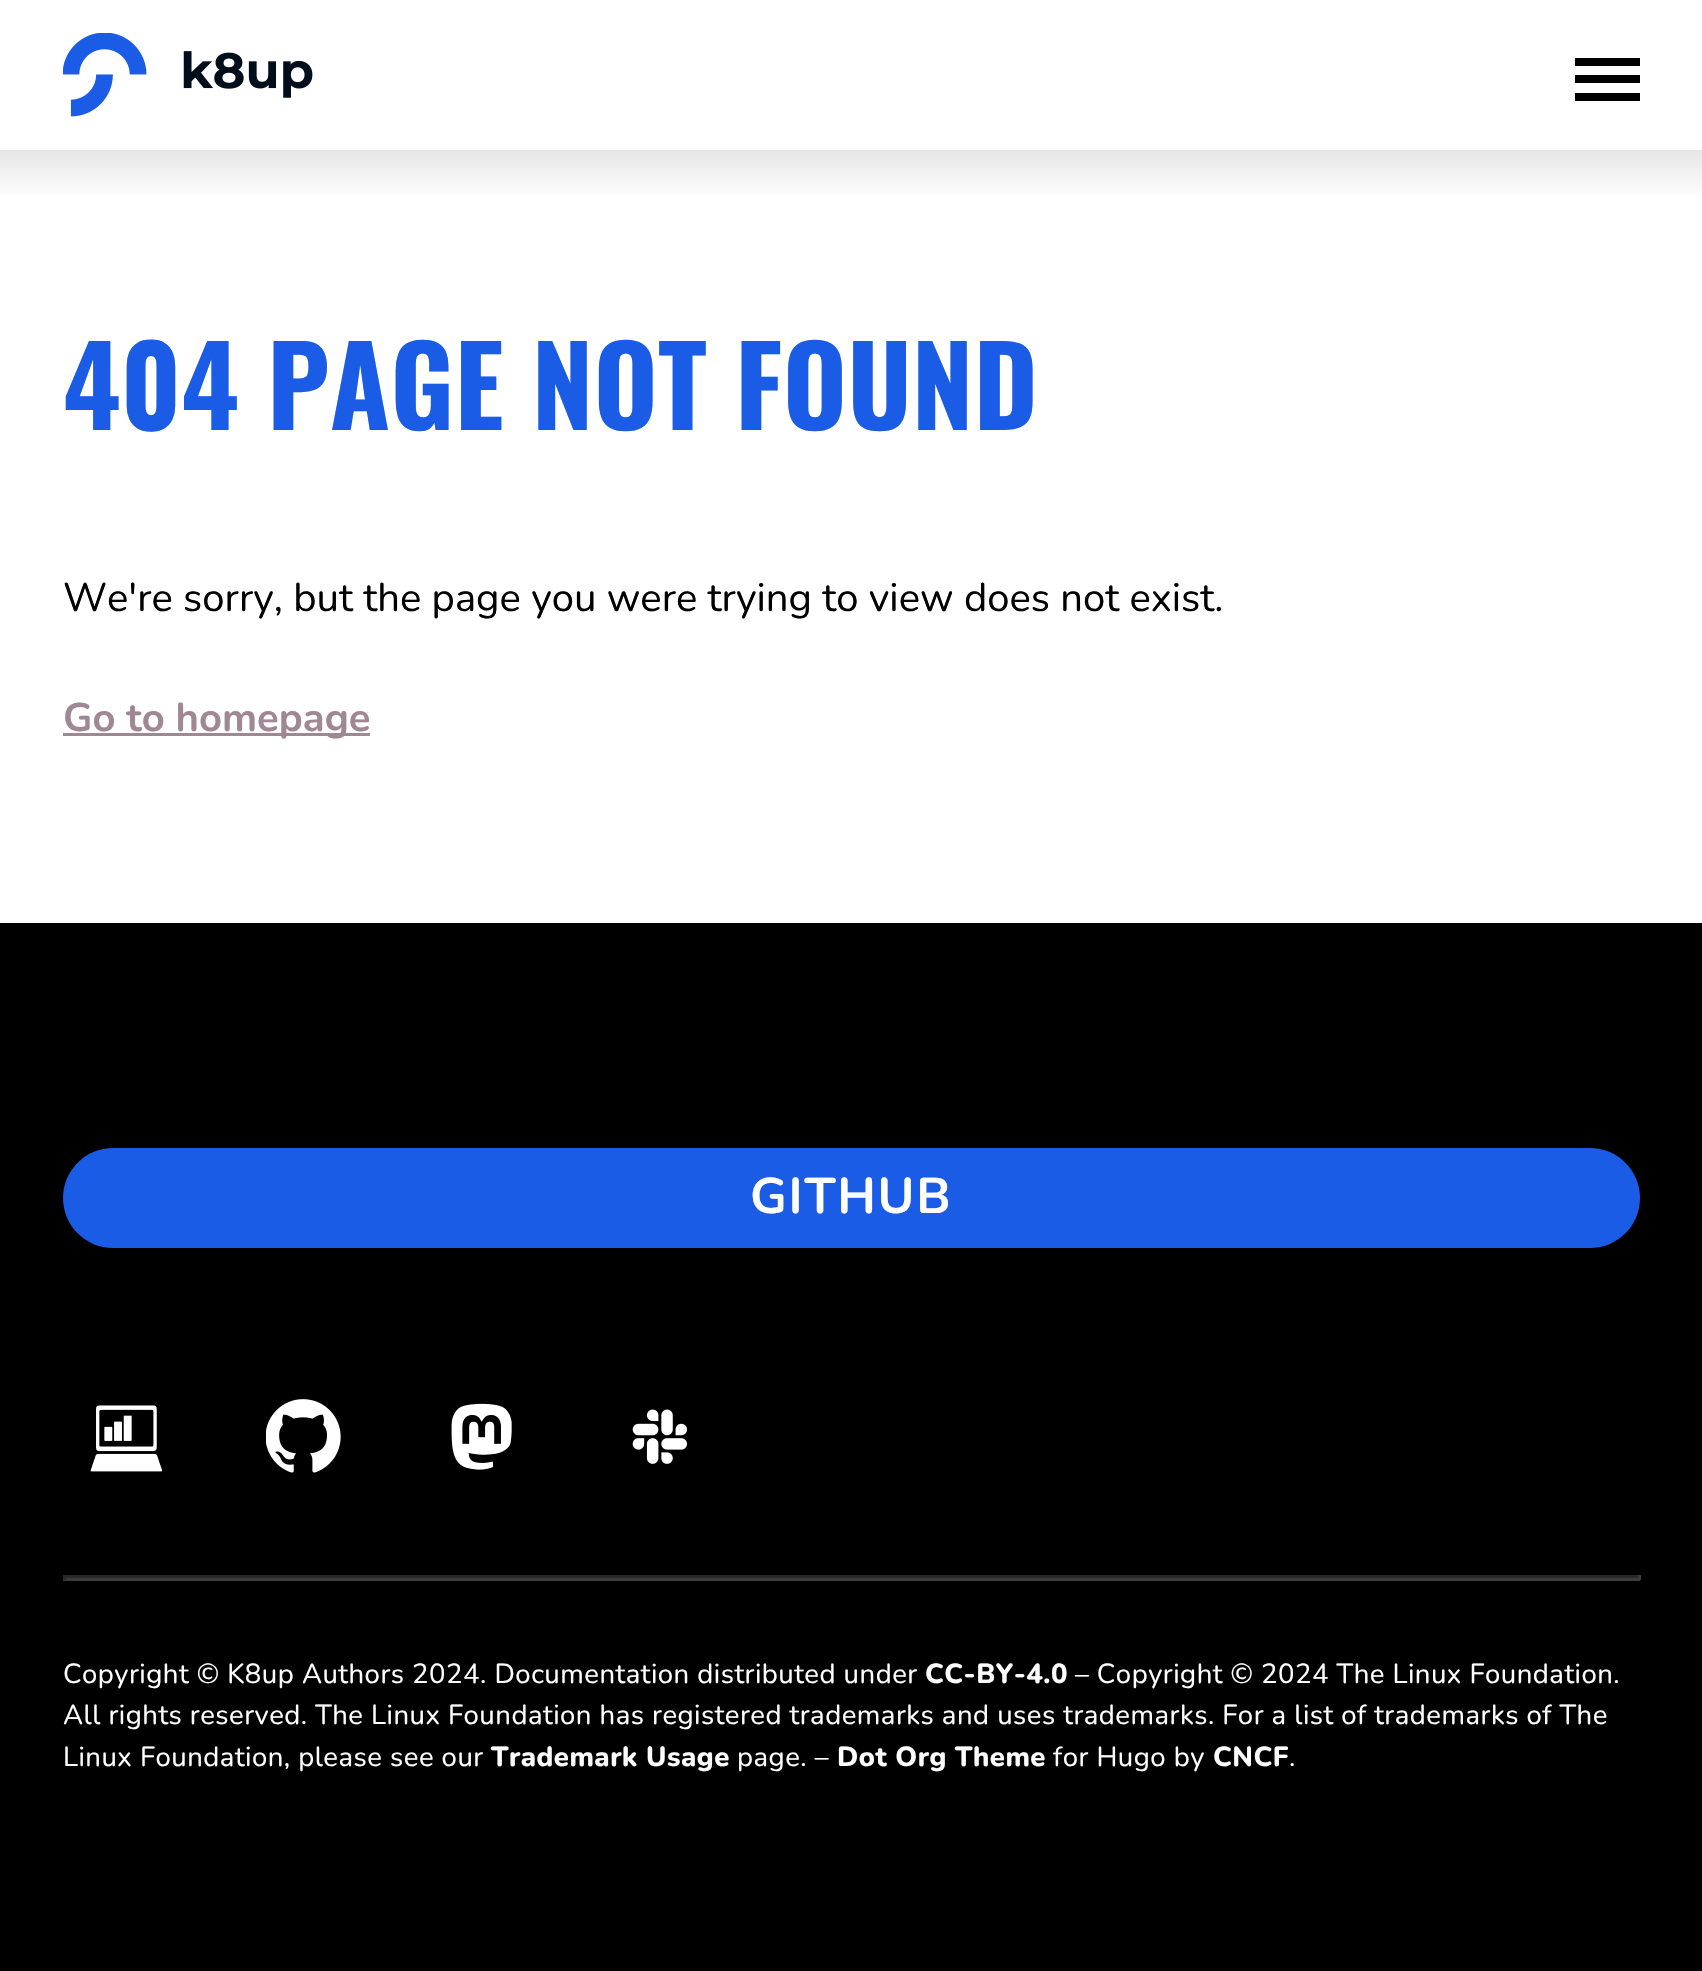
void draw(SkCanvas* canvas) {
	SkPaint paint;
	paint.setAntiAlias(true);
	auto spacedText = [&](const char* s, float x, float y, const SkFont& font, const SkPaint& ink, float letter, float word) {
		std::vector<SkGlyphID> glyphs(font.countText(s, strlen(s), SkTextEncoding::kUTF8));
		std::vector<float> xs(glyphs.size());
		font.textToGlyphs(s, strlen(s), SkTextEncoding::kUTF8, glyphs);
		font.getXPos(glyphs, xs, x);
		float extra = 0;
		for (size_t i = 0; i < glyphs.size(); i++) {
			xs[i] += extra;
			extra += letter + word * (glyphs[i] == font.unicharToGlyph(' '));
		}
		canvas->drawTextBlob(SkTextBlob::MakeFromPosHGlyphs(glyphs, xs, y, font), 0, 0, ink);
	};
	canvas->clear(0xffffffff);
	canvas->drawImageRect(SkImages::DeferredFromEncodedData(SkData::MakeFromFileName("img1.png")), SkRect::MakeXYWH(63, 33, 250, 84), SkSamplingOptions());
	paint.setColor(0xff000000);
	canvas->drawRect(SkRect::MakeXYWH(1575, 75, 65, 8), paint);
	canvas->drawRect(SkRect::MakeXYWH(1575, 58, 65, 8), paint);
	canvas->drawRect(SkRect::MakeXYWH(1575, 93, 65, 8), paint);
	{
		const SkColor colors[] = {0xffe6e6e6, 0xffffffff};
		const float stops[] = {0, 1};
		const SkPoint ends[] = {{851, 150}, {851, 200}};
		paint.setShader(SkGradientShader::MakeLinear(ends, colors, stops, 2, SkTileMode::kClamp));
		paint.setAlpha(255);
	}
	canvas->drawRect(SkRect::MakeXYWH(0, 150, 1702, 45), paint);
	SkFont f1(fontMgr->matchFamilyStyle("Oswald", SkFontStyle::Bold()), 110);
	f1.setSubpixel(true);
	paint.setShader(nullptr);
	paint.setColor(0xff1a5ce6);
	canvas->drawString("404 PAGE NOT FOUND", 63, 430, f1, paint);
	SkFont f2(fontMgr->matchFamilyStyle("Nunito", SkFontStyle(200, SkFontStyle::kNormal_Width, SkFontStyle::kUpright_Slant)), 40);
	f2.setSubpixel(true);
	paint.setColor(0xff000000);
	canvas->drawString("We're sorry, but the page you were trying to view does not exist.", 63, 611, f2, paint);
	paint.setColor(0xffa08794);
	canvas->drawRect(SkRect::MakeXYWH(63, 733, 307, 3), paint);
	SkFont f3(fontMgr->matchFamilyStyle("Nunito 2", SkFontStyle(200, SkFontStyle::kNormal_Width, SkFontStyle::kUpright_Slant)), 40);
	f3.setSubpixel(true);
	canvas->drawString("Go to homepage", 63, 731, f3, paint);
	paint.setColor(0xff000000);
	canvas->drawRect(SkRect::MakeXYWH(0, 923, 1702, 1048), paint);
	paint.setColor(0xff1a5ce6);
	canvas->drawRoundRect(SkRect::MakeXYWH(63, 1148, 1577, 100), 50, 50, paint);
	SkFont f4(fontMgr->matchFamilyStyle("Nunito 2", SkFontStyle(200, SkFontStyle::kNormal_Width, SkFontStyle::kUpright_Slant)), 50);
	f4.setSubpixel(true);
	paint.setColor(0xffffffff);
	spacedText("GITHUB", 750, 1213, f4, paint, 1.75, 0);
	canvas->drawImageRect(SkImages::DeferredFromEncodedData(SkData::MakeFromFileName("img2.png")), SkRect::MakeXYWH(90, 1405, 73, 67), SkSamplingOptions());
	canvas->drawImageRect(SkImages::DeferredFromEncodedData(SkData::MakeFromFileName("img3.png")), SkRect::MakeXYWH(266, 1399, 75, 74), SkSamplingOptions());
	canvas->drawImageRect(SkImages::DeferredFromEncodedData(SkData::MakeFromFileName("img4.png")), SkRect::MakeXYWH(451, 1403, 61, 67), SkSamplingOptions());
	canvas->drawImageRect(SkImages::DeferredFromEncodedData(SkData::MakeFromFileName("img5.png")), SkRect::MakeXYWH(632, 1409, 55, 55), SkSamplingOptions());
	paint.setColor(0xff282828);
	canvas->drawRect(SkRect::MakeXYWH(63, 1575, 1577, 3), paint);
	paint.setColor(0xff3c3c3c);
	canvas->drawRect(SkRect::MakeXYWH(1638, 1575, 3, 5), paint);
	canvas->drawRect(SkRect::MakeXYWH(63, 1578, 1577, 3), paint);
	paint.setColor(0xff282828);
	canvas->drawRect(SkRect::MakeXYWH(63, 1575, 3, 5), paint);
	SkFont f5(fontMgr->matchFamilyStyle("Nunito", SkFontStyle(200, SkFontStyle::kNormal_Width, SkFontStyle::kUpright_Slant)), 27.5);
	f5.setSubpixel(true);
	paint.setColor(0xffffffff);
	spacedText("Copyright © K8up Authors 2024. Documentation distributed under", 63, 1683, f5, paint, 0.5, 0);
	SkFont f6(fontMgr->matchFamilyStyle("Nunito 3", SkFontStyle(200, SkFontStyle::kNormal_Width, SkFontStyle::kUpright_Slant)), 27.5);
	f6.setSubpixel(true);
	spacedText("CC-BY-4.0", 925, 1683, f6, paint, 0.5, 0);
	spacedText("– Copyright © 2024 The Linux Foundation.", 1075, 1683, f5, paint, 0.5, 0);
	spacedText("All rights reserved. The Linux Foundation has registered trademarks and uses trademarks. For a list of trademarks of The", 63, 1724, f5, paint, 0.5, 0);
	spacedText("Linux Foundation, please see our", 63, 1766, f5, paint, 0.5, 0);
	spacedText("Trademark Usage", 491, 1766, f6, paint, 0.5, 0);
	spacedText("page. –", 737, 1766, f5, paint, 0.5, 0);
	spacedText("Dot Org Theme", 837, 1766, f6, paint, 0.5, 0);
	spacedText("for Hugo by", 1053, 1766, f5, paint, 0.5, 0);
	spacedText("CNCF", 1213, 1766, f6, paint, 0.5, 0);
	spacedText(".", 1289, 1766, f5, paint, 0.5, 0);
}
